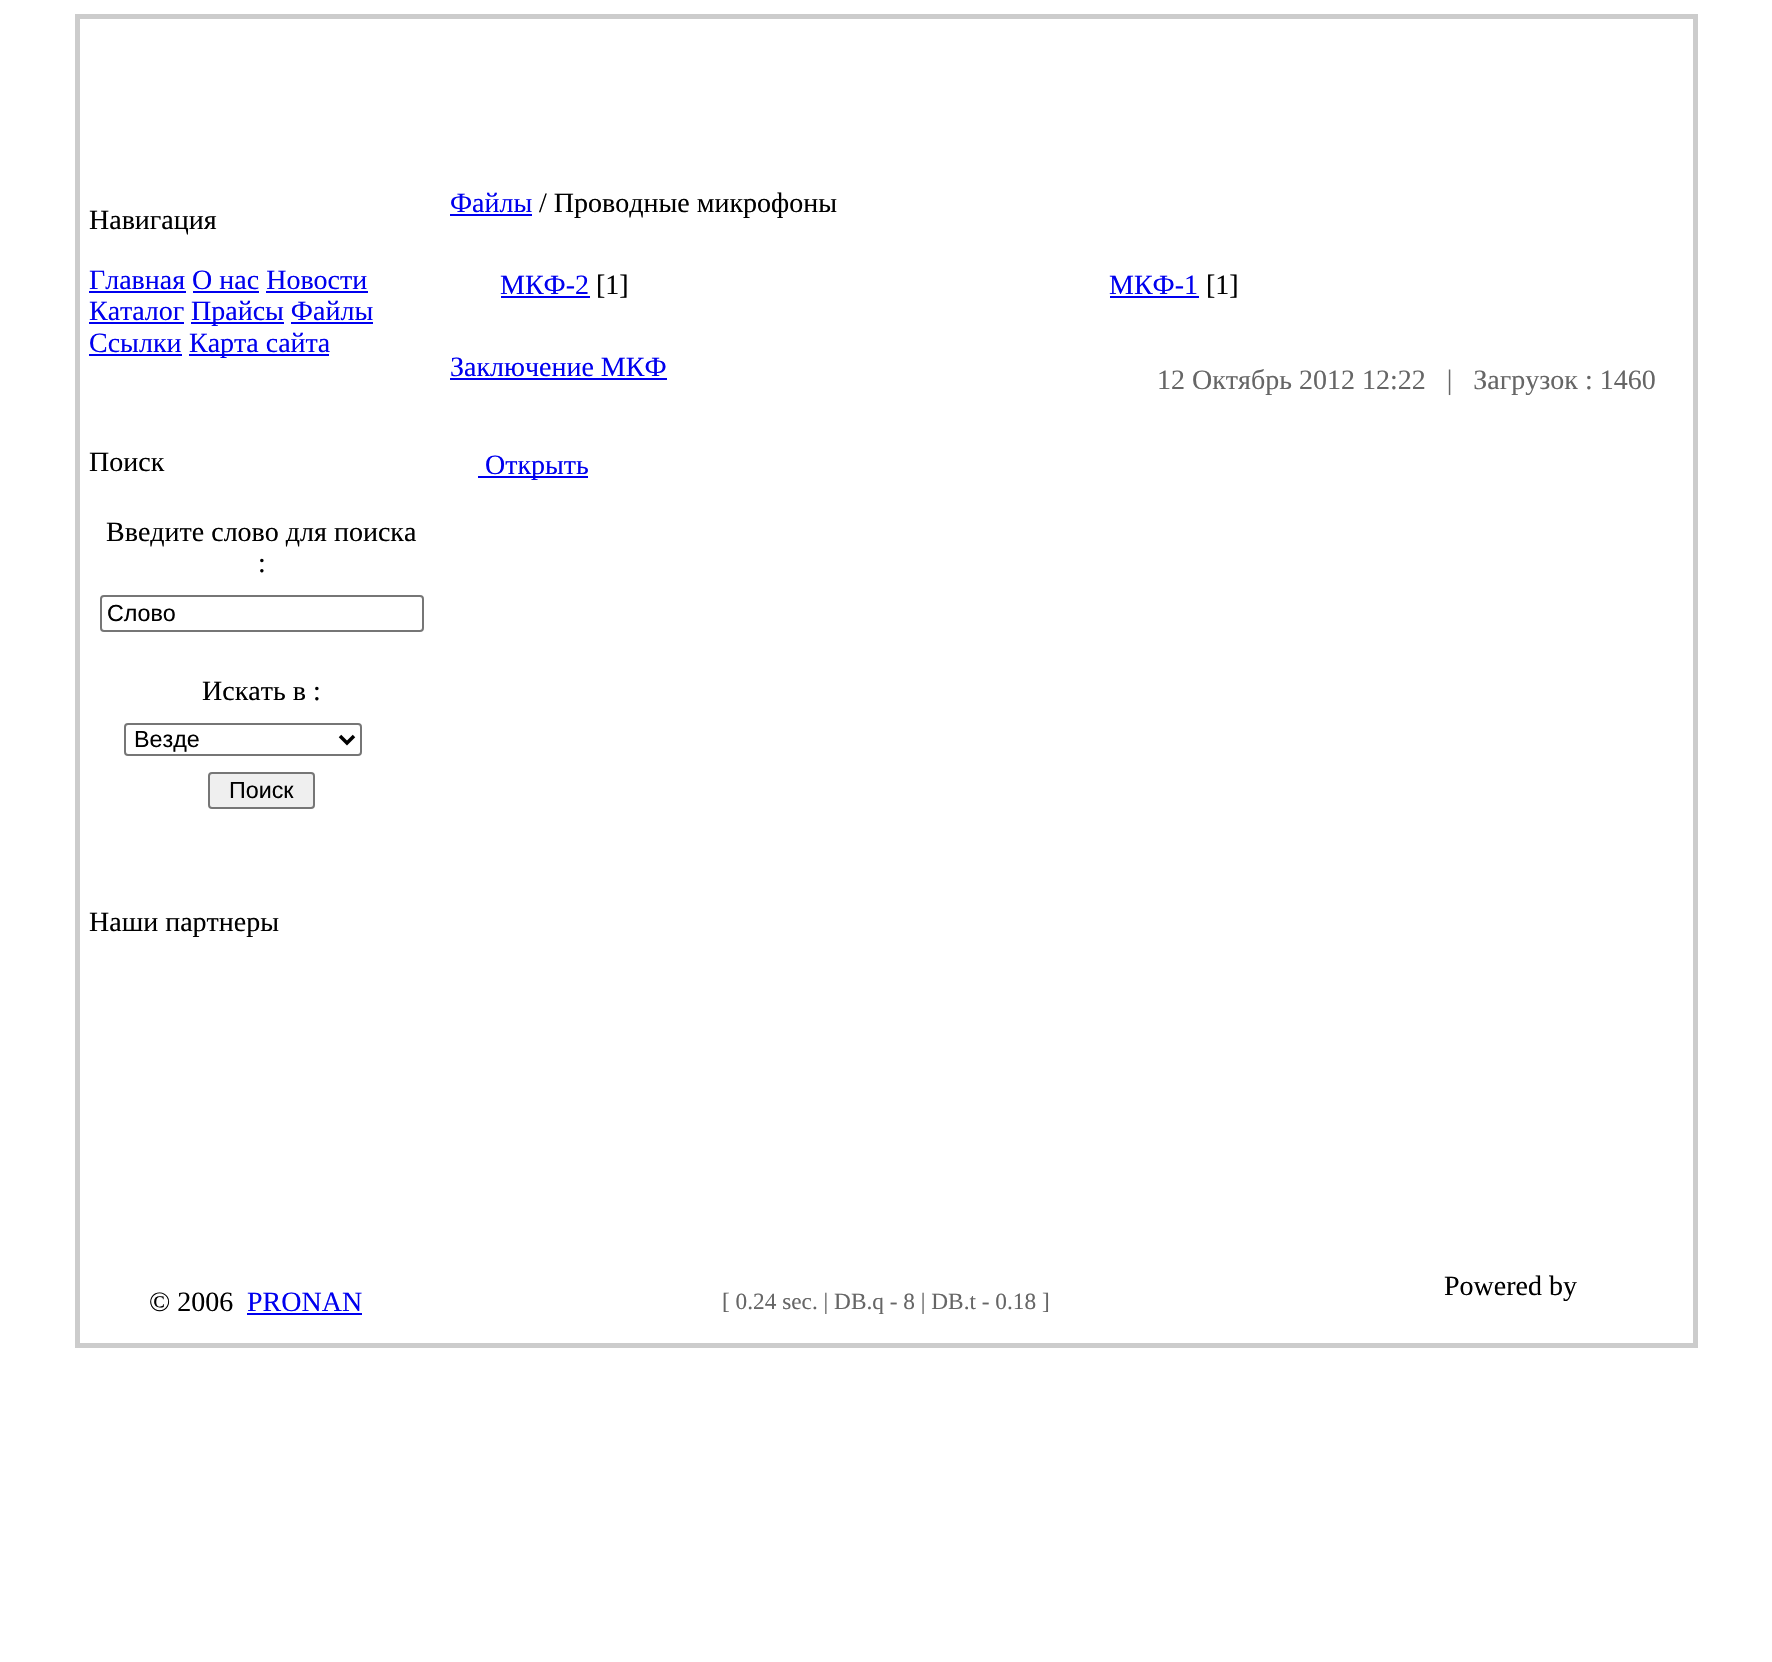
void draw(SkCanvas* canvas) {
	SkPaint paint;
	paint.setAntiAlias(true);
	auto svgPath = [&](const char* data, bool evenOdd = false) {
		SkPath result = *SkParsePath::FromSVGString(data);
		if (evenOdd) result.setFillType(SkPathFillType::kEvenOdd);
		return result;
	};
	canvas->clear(0xffffffff);
	paint.setStroke(true);
	paint.setStrokeWidth(5);
	paint.setColor(0xffcccccc);
	canvas->drawRect(SkRect::MakeXYWH(77.5, 16.5, 1618, 1329), paint);
	SkFont f1(fontMgr->matchFamilyStyle("Liberation Serif", SkFontStyle::Normal()), 28);
	f1.setSubpixel(true);
	paint.setStroke(false);
	paint.setColor(0xff000000);
	canvas->drawString("Навигация", 89, 229, f1, paint);
	paint.setColor(0xff0000ee);
	canvas->drawString("Главная О нас Новости", 89, 289, f1, paint);
	canvas->drawRect(SkRect::MakeXYWH(89, 291, 97, 2), paint);
	canvas->drawRect(SkRect::MakeXYWH(193, 291, 66, 2), paint);
	canvas->drawRect(SkRect::MakeXYWH(266, 291, 102, 2), paint);
	canvas->drawString("Каталог", 89, 320, f1, paint);
	canvas->drawRect(SkRect::MakeXYWH(89, 322, 95, 2), paint);
	canvas->drawRect(SkRect::MakeXYWH(191, 322, 93, 2), paint);
	canvas->drawString("Прайсы Файлы", 191, 320, f1, paint);
	canvas->drawRect(SkRect::MakeXYWH(291, 322, 82, 2), paint);
	canvas->drawString("Ссылки", 89, 352, f1, paint);
	canvas->drawRect(SkRect::MakeXYWH(89, 354, 93, 2), paint);
	canvas->drawRect(SkRect::MakeXYWH(189, 354, 140, 2), paint);
	canvas->drawString("Карта сайта", 189, 352, f1, paint);
	paint.setColor(0xff000000);
	canvas->drawString("Поиск", 89, 471, f1, paint);
	canvas->drawString("Введите слово для поиска", 106, 541, f1, paint);
	canvas->drawString(":", 258, 572, f1, paint);
	paint.setStroke(true);
	paint.setStrokeWidth(2);
	paint.setColor(0xff767676);
	canvas->drawRoundRect(SkRect::MakeXYWH(101, 596, 322, 35), 3, 3, paint);
	SkFont f2(fontMgr->matchFamilyStyle("Liberation Sans", SkFontStyle::Normal()), 23.3);
	f2.setSubpixel(true);
	paint.setStroke(false);
	paint.setColor(0xff000000);
	canvas->drawString("Слово", 107, 621, f2, paint);
	canvas->drawString("Искать в :", 202, 700, f1, paint);
	paint.setStroke(true);
	paint.setColor(0xff767676);
	canvas->drawRoundRect(SkRect::MakeXYWH(125, 724, 236, 31), 3, 3, paint);
	paint.setStrokeWidth(3.5);
	paint.setColor(0xff000000);
	canvas->drawPath(svgPath("M340 736L347 743L354 736"), paint);
	paint.setStroke(false);
	canvas->drawString("Везде", 134, 747, f2, paint);
	paint.setColor(0xffefefef);
	canvas->drawRoundRect(SkRect::MakeXYWH(209, 773, 105, 35), 3, 3, paint);
	paint.setStroke(true);
	paint.setStrokeWidth(2);
	paint.setColor(0xff767676);
	canvas->drawRoundRect(SkRect::MakeXYWH(209, 773, 105, 35), 3, 3, paint);
	paint.setStroke(false);
	paint.setColor(0xff000000);
	canvas->drawString("Поиск", 229, 798, f2, paint);
	canvas->drawString("Наши партнеры", 89, 931, f1, paint);
	paint.setColor(0xff0000ee);
	canvas->drawString("Файлы", 450, 212, f1, paint);
	canvas->drawRect(SkRect::MakeXYWH(450, 214, 82, 2), paint);
	paint.setColor(0xff000000);
	canvas->drawString("/ Проводные микрофоны", 539, 212, f1, paint);
	paint.setColor(0xff0000ee);
	canvas->drawString("МКФ-2", 500, 294, f1, paint);
	canvas->drawRect(SkRect::MakeXYWH(501, 296, 89, 2), paint);
	paint.setColor(0xff000000);
	canvas->drawString("[1]", 596, 294, f1, paint);
	paint.setColor(0xff0000ee);
	canvas->drawString("МКФ-1", 1109, 294, f1, paint);
	canvas->drawRect(SkRect::MakeXYWH(1110, 296, 89, 2), paint);
	paint.setColor(0xff000000);
	canvas->drawString("[1]", 1206, 294, f1, paint);
	paint.setColor(0xff0000ee);
	canvas->drawString("Заключение МКФ", 450, 376, f1, paint);
	canvas->drawRect(SkRect::MakeXYWH(450, 378, 217, 2), paint);
	paint.setColor(0xff666666);
	canvas->drawString("12 Октябрь 2012 12:22   |   Загрузок : 1460", 1157, 389, f1, paint);
	paint.setColor(0xff0000ee);
	canvas->drawRect(SkRect::MakeXYWH(478, 476, 110, 2), paint);
	canvas->drawString("Открыть", 485, 474, f1, paint);
	paint.setColor(0xff000000);
	canvas->drawString("© 2006", 149, 1311, f1, paint);
	paint.setColor(0xff0000ee);
	canvas->drawString("PRONAN", 247, 1311, f1, paint);
	canvas->drawRect(SkRect::MakeXYWH(247, 1313, 115, 2), paint);
	SkFont f3(fontMgr->matchFamilyStyle("Liberation Serif", SkFontStyle::Normal()), 23.3);
	f3.setSubpixel(true);
	paint.setColor(0xff666666);
	canvas->drawString("[ 0.24 sec. | DB.q - 8 | DB.t - 0.18 ]", 722, 1309, f3, paint);
	paint.setColor(0xff000000);
	canvas->drawString("Powered by", 1444, 1295, f1, paint);
}
